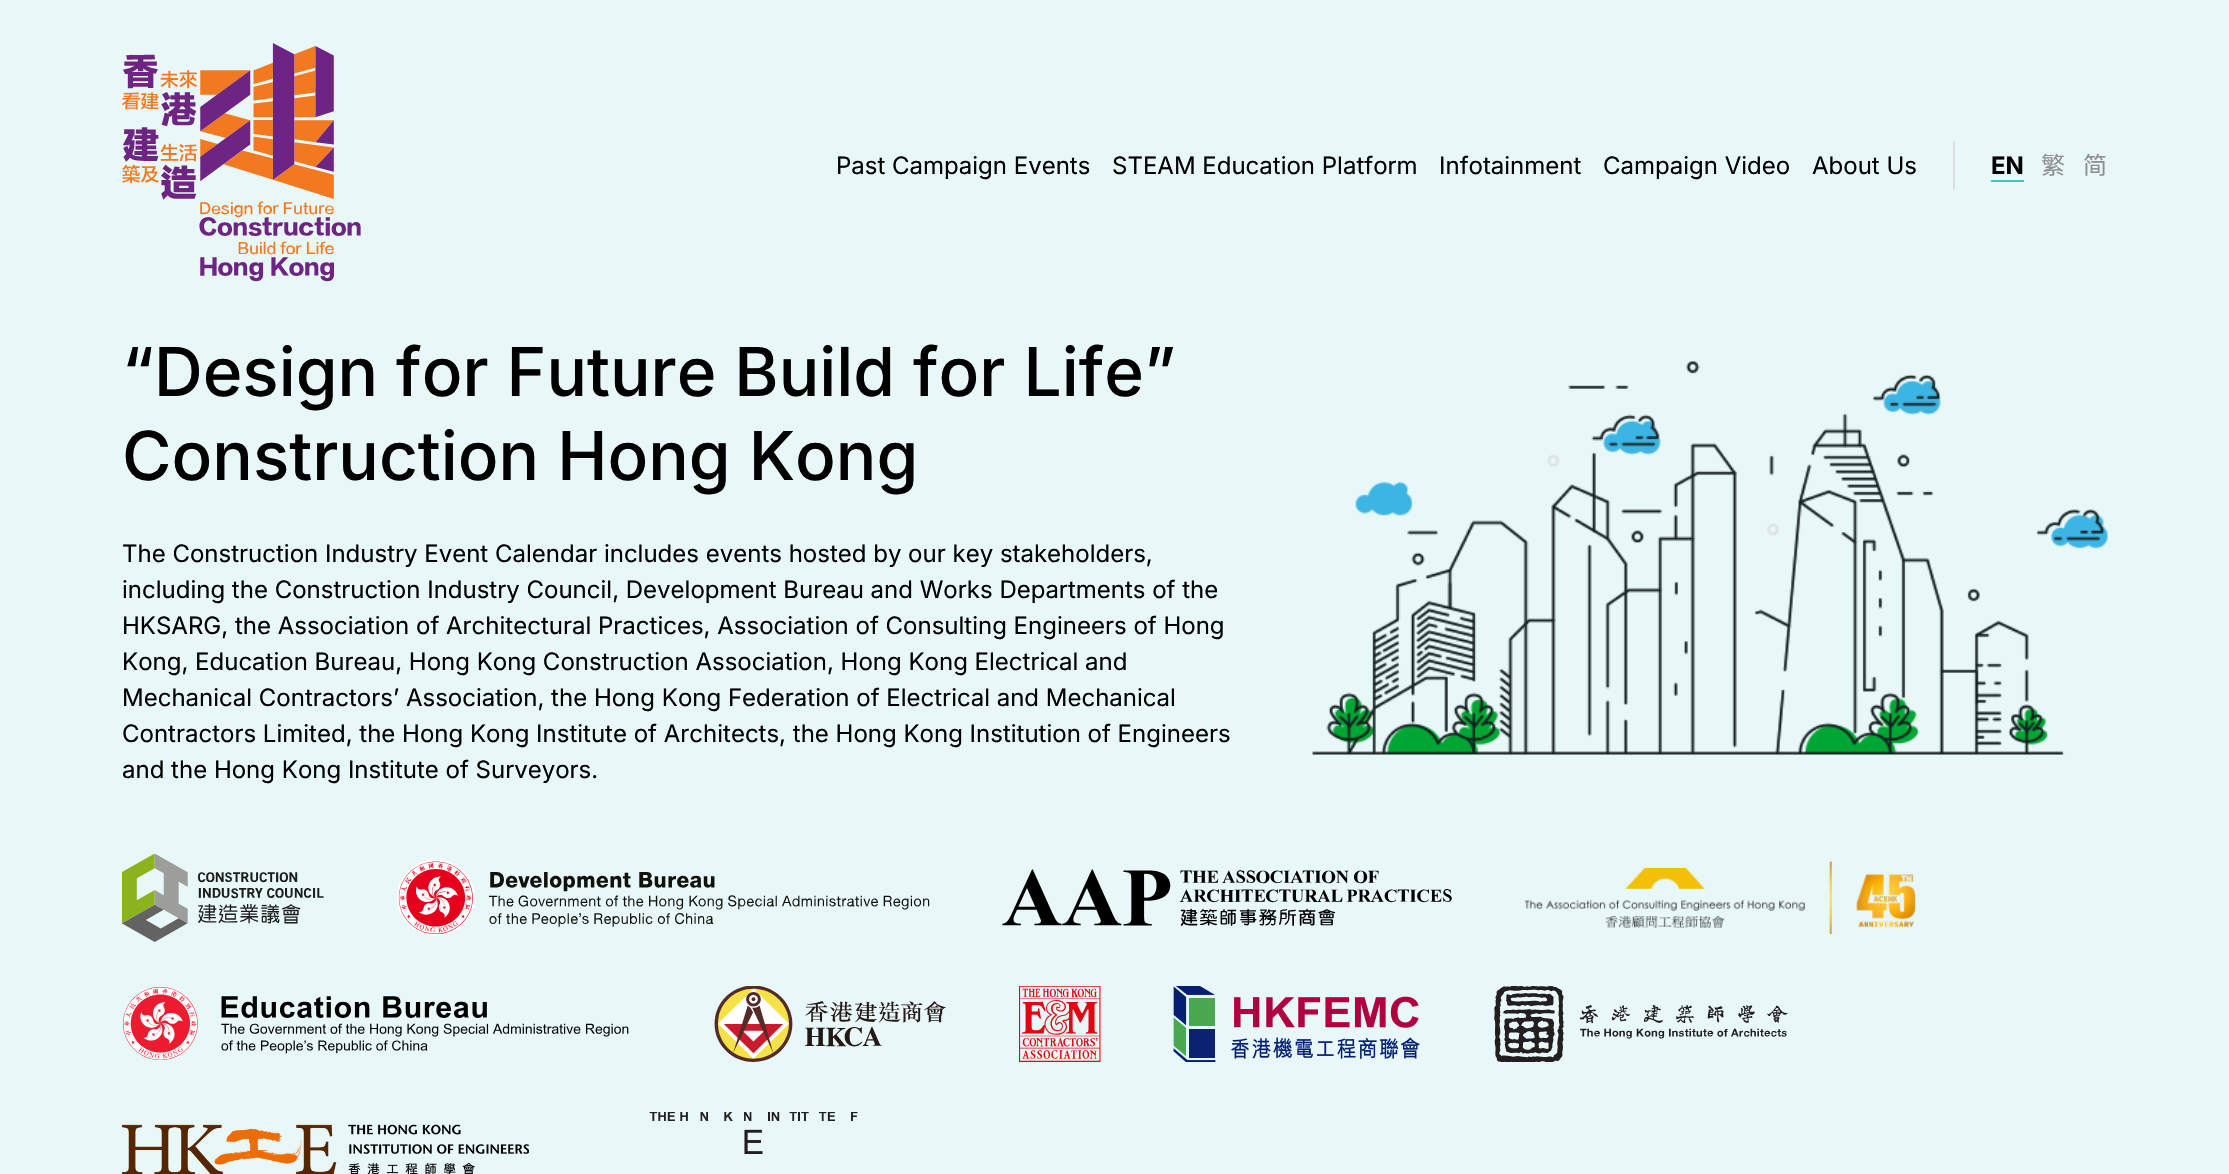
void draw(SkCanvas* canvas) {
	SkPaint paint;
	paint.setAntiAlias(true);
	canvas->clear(0xffe8f8f8);
	canvas->drawImageRect(SkImages::DeferredFromEncodedData(SkData::MakeFromFileName("img1.png")), SkRect::MakeXYWH(122, 43, 239, 239), SkSamplingOptions());
	paint.setColor(0xffdedede);
	canvas->drawRect(SkRect::MakeXYWH(1953, 141, 2, 48), paint);
	SkFont f1(fontMgr->matchFamilyStyle("Inter", SkFontStyle::Normal()), 24);
	f1.setSubpixel(true);
	paint.setColor(0xff000000);
	canvas->drawString("Past Campaign Events", 836, 174, f1, paint);
	canvas->drawString("STEAM Education Platform", 1112, 174, f1, paint);
	canvas->drawString("Infotainment", 1439, 174, f1, paint);
	canvas->drawString("Campaign Video", 1603, 174, f1, paint);
	canvas->drawString("About Us", 1812, 174, f1, paint);
	paint.setColor(0xff3bc3c5);
	canvas->drawRect(SkRect::MakeXYWH(1991, 180, 33, 2), paint);
	SkFont f2(fontMgr->matchFamilyStyle("Inter", SkFontStyle::Bold()), 24);
	f2.setSubpixel(true);
	paint.setColor(0xff000000);
	canvas->drawString("EN", 1991, 174, f2, paint);
	SkFont f3(fontMgr->matchFamilyStyle("Noto Sans SC", SkFontStyle::Normal()), 24);
	f3.setSubpixel(true);
	paint.setColor(0xff8f8f8f);
	canvas->drawString("繁", 2041, 174, f3, paint);
	canvas->drawString("简", 2083, 174, f3, paint);
	SkFont f4(fontMgr->matchFamilyStyle("Inter", SkFontStyle(500, SkFontStyle::kNormal_Width, SkFontStyle::kUpright_Slant)), 67.5);
	f4.setSubpixel(true);
	paint.setColor(0xff000000);
	canvas->drawString("“Design for Future Build for Life”", 122, 396, f4, paint);
	canvas->drawString("Construction Hong Kong", 122, 480, f4, paint);
	canvas->drawString("The Construction Industry Event Calendar includes events hosted by our key stakeholders,", 122, 562, f1, paint);
	canvas->drawString("including the Construction Industry Council, Development Bureau and Works Departments of the", 122, 598, f1, paint);
	canvas->drawString("HKSARG, the Association of Architectural Practices, Association of Consulting Engineers of Hong", 122, 634, f1, paint);
	canvas->drawString("Kong, Education Bureau, Hong Kong Construction Association, Hong Kong Electrical and", 122, 670, f1, paint);
	canvas->drawString("Mechanical Contractors’ Association, the Hong Kong Federation of Electrical and Mechanical", 122, 706, f1, paint);
	canvas->drawString("Contractors Limited, the Hong Kong Institute of Architects, the Hong Kong Institution of Engineers", 122, 742, f1, paint);
	canvas->drawString("and the Hong Kong Institute of Surveyors.", 122, 778, f1, paint);
	canvas->drawImageRect(SkImages::DeferredFromEncodedData(SkData::MakeFromFileName("img2.png")), SkRect::MakeXYWH(1312, 361, 796, 394), SkSamplingOptions());
	canvas->drawImageRect(SkImages::DeferredFromEncodedData(SkData::MakeFromFileName("img3.png")), SkRect::MakeXYWH(122, 854, 202, 88), SkSamplingOptions());
	canvas->drawImageRect(SkImages::DeferredFromEncodedData(SkData::MakeFromFileName("img4.png")), SkRect::MakeXYWH(397, 860, 533, 76), SkSamplingOptions());
	canvas->drawImageRect(SkImages::DeferredFromEncodedData(SkData::MakeFromFileName("img5.png")), SkRect::MakeXYWH(1002, 869, 450, 57), SkSamplingOptions());
	canvas->drawImageRect(SkImages::DeferredFromEncodedData(SkData::MakeFromFileName("img6.png")), SkRect::MakeXYWH(1525, 861, 391, 74), SkSamplingOptions());
	canvas->drawImageRect(SkImages::DeferredFromEncodedData(SkData::MakeFromFileName("img7.png")), SkRect::MakeXYWH(123, 987, 506, 73), SkSamplingOptions());
	canvas->drawImageRect(SkImages::DeferredFromEncodedData(SkData::MakeFromFileName("img8.png")), SkRect::MakeXYWH(714, 986, 232, 76), SkSamplingOptions());
	canvas->drawImageRect(SkImages::DeferredFromEncodedData(SkData::MakeFromFileName("img9.png")), SkRect::MakeXYWH(1019, 986, 82, 76), SkSamplingOptions());
	canvas->drawImageRect(SkImages::DeferredFromEncodedData(SkData::MakeFromFileName("img10.png")), SkRect::MakeXYWH(1173, 986, 247, 76), SkSamplingOptions());
	canvas->drawImageRect(SkImages::DeferredFromEncodedData(SkData::MakeFromFileName("img11.png")), SkRect::MakeXYWH(1494, 986, 294, 76), SkSamplingOptions());
	canvas->drawImageRect(SkImages::DeferredFromEncodedData(SkData::MakeFromFileName("img12.png")), SkRect::MakeXYWH(122, 1124, 407, 50), SkSamplingOptions());
	canvas->drawImageRect(SkImages::DeferredFromEncodedData(SkData::MakeFromFileName("img13.png")), SkRect::MakeXYWH(649, 1112, 209, 42), SkSamplingOptions());
}
